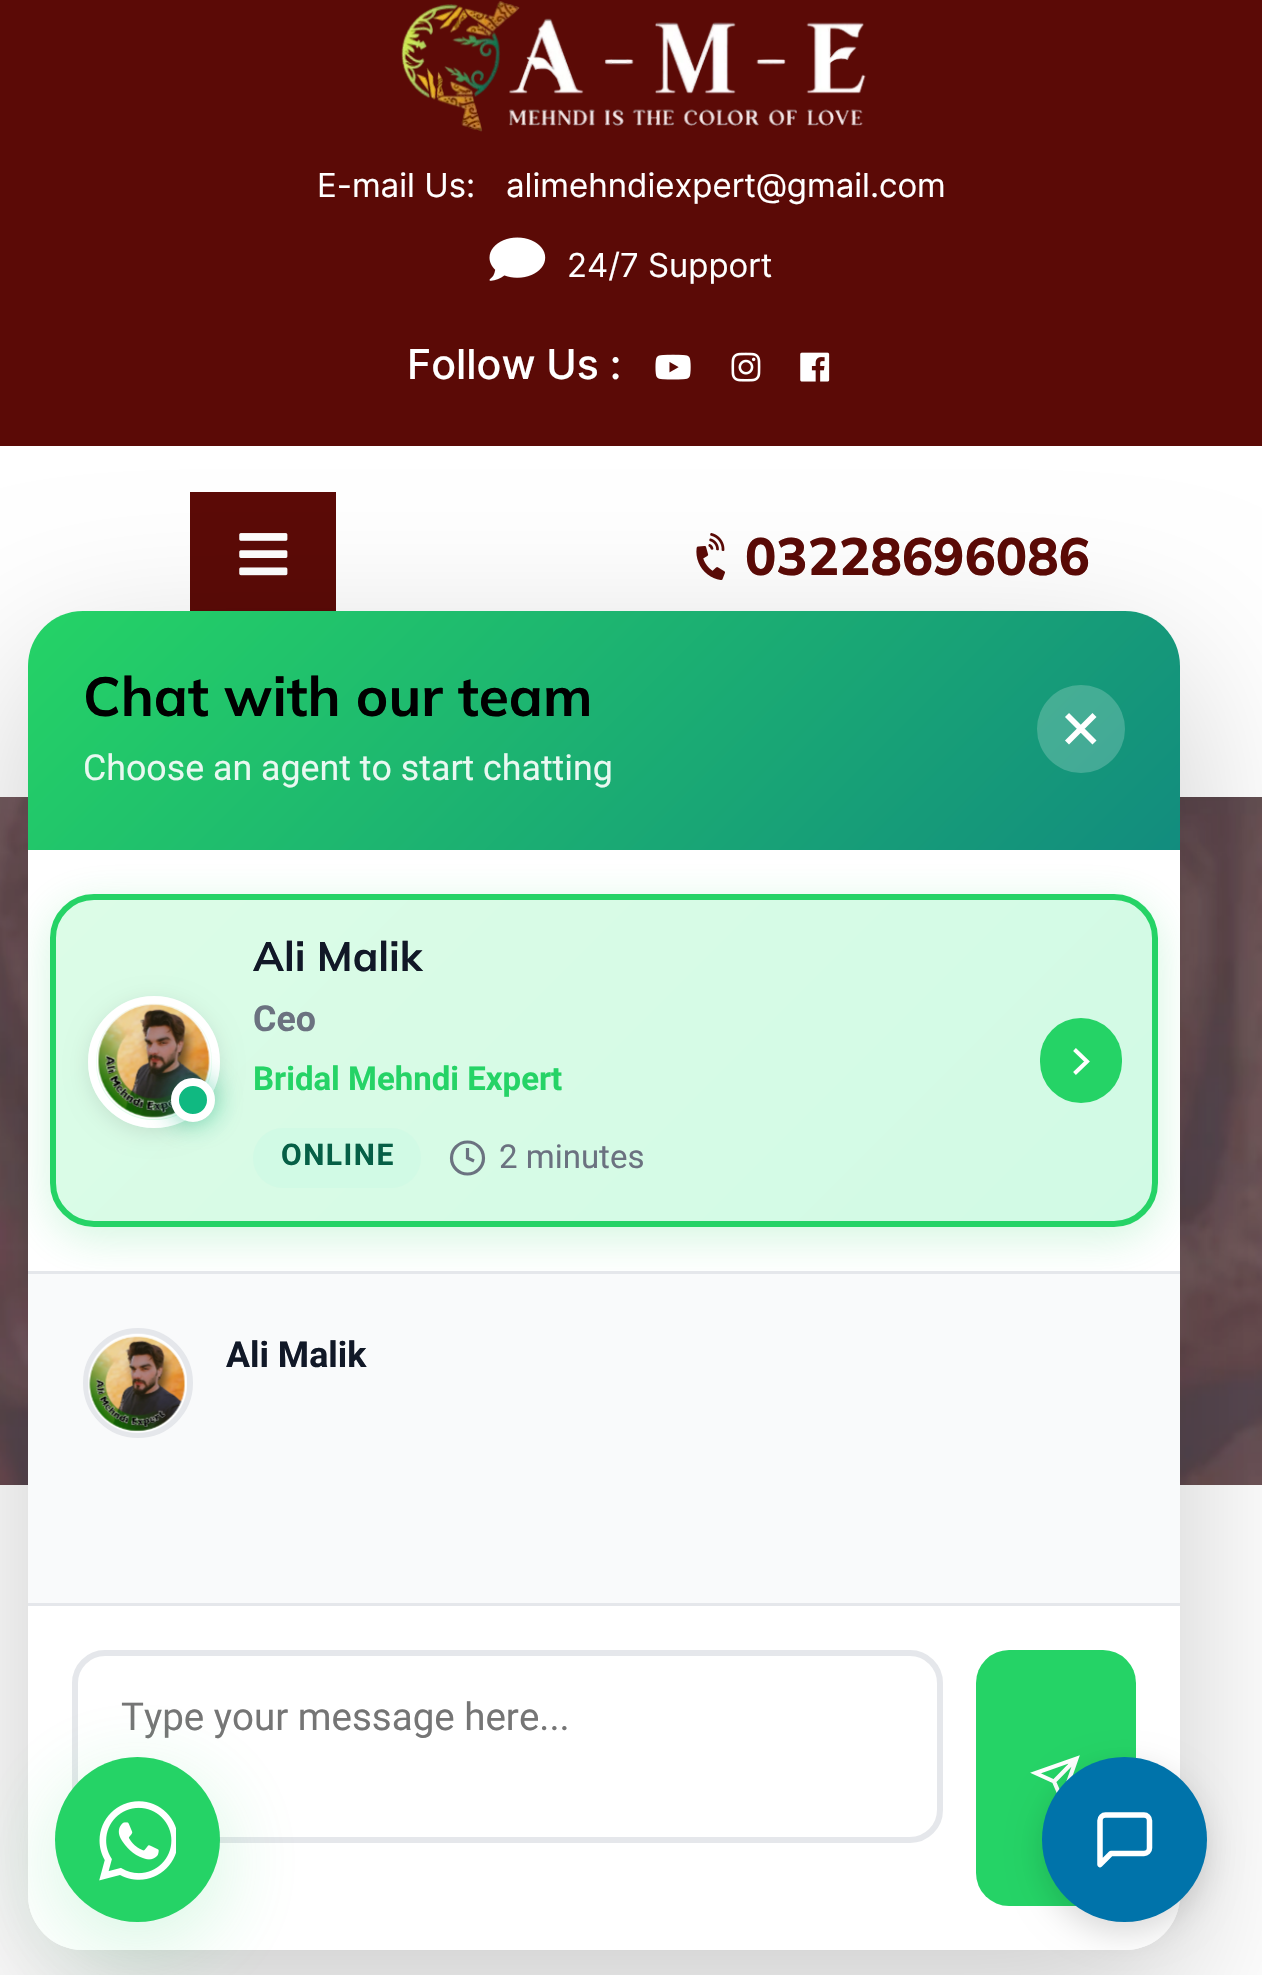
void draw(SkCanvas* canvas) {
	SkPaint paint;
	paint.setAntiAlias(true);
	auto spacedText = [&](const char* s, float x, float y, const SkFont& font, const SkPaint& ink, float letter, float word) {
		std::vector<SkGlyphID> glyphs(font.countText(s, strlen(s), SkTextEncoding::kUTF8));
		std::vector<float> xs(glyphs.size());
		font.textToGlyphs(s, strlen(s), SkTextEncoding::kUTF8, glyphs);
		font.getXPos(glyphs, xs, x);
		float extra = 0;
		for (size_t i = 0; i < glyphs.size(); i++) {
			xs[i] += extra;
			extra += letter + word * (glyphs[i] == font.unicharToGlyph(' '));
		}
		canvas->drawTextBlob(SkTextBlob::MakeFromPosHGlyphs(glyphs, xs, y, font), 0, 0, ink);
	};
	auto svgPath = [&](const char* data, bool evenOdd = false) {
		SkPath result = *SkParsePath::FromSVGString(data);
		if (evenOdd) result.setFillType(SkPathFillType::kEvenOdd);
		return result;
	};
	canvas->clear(0xffffffff);
	paint.setColor(0xff5b0a06);
	canvas->drawRect(SkRect::MakeXYWH(0, 0, 1262, 446), paint);
	canvas->drawImageRect(SkImages::DeferredFromEncodedData(SkData::MakeFromFileName("img1.png")), SkRect::MakeXYWH(401, 1, 465, 131), SkSamplingOptions());
	SkFont f1(fontMgr->matchFamilyStyle("Inter", SkFontStyle::Normal()), 33);
	f1.setSubpixel(true);
	paint.setColor(0xffffffff);
	canvas->drawString("E-mail Us:", 317, 197, f1, paint);
	canvas->drawString("alimehndiexpert@gmail.com", 506, 197, f1, paint);
	canvas->drawImageRect(SkImages::DeferredFromEncodedData(SkData::MakeFromFileName("img2.png")), SkRect::MakeXYWH(489, 237, 57, 44), SkSamplingOptions());
	canvas->drawString("24/7 Support", 567, 277, f1, paint);
	SkFont f2(fontMgr->matchFamilyStyle("Inter", SkFontStyle(500, SkFontStyle::kNormal_Width, SkFontStyle::kUpright_Slant)), 41.25);
	f2.setSubpixel(true);
	canvas->drawString("Follow Us :", 407, 379, f2, paint);
	canvas->drawImageRect(SkImages::DeferredFromEncodedData(SkData::MakeFromFileName("img3.png")), SkRect::MakeXYWH(655, 354, 36, 26), SkSamplingOptions());
	canvas->drawImageRect(SkImages::DeferredFromEncodedData(SkData::MakeFromFileName("img4.png")), SkRect::MakeXYWH(731, 352, 30, 30), SkSamplingOptions());
	canvas->drawImageRect(SkImages::DeferredFromEncodedData(SkData::MakeFromFileName("img5.png")), SkRect::MakeXYWH(800, 352, 30, 30), SkSamplingOptions());
	paint.setColor(0xff5b0a06);
	canvas->drawRect(SkRect::MakeXYWH(190, 492, 146, 119), paint);
	canvas->drawImageRect(SkImages::DeferredFromEncodedData(SkData::MakeFromFileName("img6.png")), SkRect::MakeXYWH(239, 533, 49, 43), SkSamplingOptions());
	canvas->drawImageRect(SkImages::DeferredFromEncodedData(SkData::MakeFromFileName("img7.png")), SkRect::MakeXYWH(696, 533, 29, 47), SkSamplingOptions());
	SkFont f3(fontMgr->matchFamilyStyle("Mulish", SkFontStyle(800, SkFontStyle::kNormal_Width, SkFontStyle::kUpright_Slant)), 52.25);
	f3.setSubpixel(true);
	canvas->drawString("03228696086", 745, 575, f3, paint);
	canvas->drawImageRect(SkImages::DeferredFromEncodedData(SkData::MakeFromFileName("img11.png")), SkRect::MakeXYWH(0, 797, 1262, 688), SkSamplingOptions());
	paint.setColor(0x33000000);
	paint.setMaskFilter(SkMaskFilter::MakeBlur(kNormal_SkBlurStyle, 82.5));
	canvas->drawRoundRect(SkRect::MakeXYWH(28, 666, 1152, 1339), 55, 55, paint);
	paint.setMaskFilter(nullptr);
	paint.setColor(0xffffffff);
	canvas->drawRoundRect(SkRect::MakeXYWH(28, 611, 1152, 1339), 55, 55, paint);
	{
		const SkColor colors[] = {0xff25d366, 0xff128c7e};
		const float stops[] = {0, 1};
		const SkPoint ends[] = {{256, 382}, {952, 1078}};
		paint.setShader(SkGradientShader::MakeLinear(ends, colors, stops, 2, SkTileMode::kClamp));
		paint.setAlpha(255);
	}
	canvas->drawPath(svgPath("M83 611H1125C1155.5 611 1180 635.5 1180 666V850H28V666C28 635.5 52.5 611 83 611Z"), paint);
	SkFont f4(fontMgr->matchFamilyStyle("Mulish", SkFontStyle::Bold()), 55);
	f4.setSubpixel(true);
	paint.setShader(nullptr);
	paint.setColor(0xff000000);
	canvas->drawString("Chat with our team", 83, 716, f4, paint);
	SkFont f5(fontMgr->matchFamilyStyle("Roboto", SkFontStyle::Normal()), 35.75);
	f5.setSubpixel(true);
	paint.setColor(0xffe9f8f1);
	canvas->drawString("Choose an agent to start chatting", 83, 780, f5, paint);
	paint.setColor(0x33ffffff);
	canvas->drawCircle(1081, 729, 44, paint);
	paint.setStroke(true);
	paint.setStrokeWidth(5.7);
	paint.setColor(0xffffffff);
	canvas->drawPath(svgPath("M1094.5 715L1067 742.5M1067 715L1094.5 742.5"), paint);
	paint.setStroke(false);
	paint.setColor(0xfff9fafb);
	canvas->drawPath(svgPath("M28 1271H1180V1895C1180 1925.5 1155.5 1950 1125 1950H83C52.5 1950 28 1925.5 28 1895Z"), paint);
	paint.setColor(0xffe5e7eb);
	canvas->drawRect(SkRect::MakeXYWH(28, 1271, 1152, 3), paint);
	canvas->save();
	canvas->clipRect(SkRect::MakeXYWH(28, 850, 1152, 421));
	paint.setColor(0x3325d366);
	paint.setMaskFilter(SkMaskFilter::MakeBlur(kNormal_SkBlurStyle, 22));
	canvas->drawRoundRect(SkRect::MakeXYWH(50, 905, 1108, 333), 44, 44, paint);
	paint.setMaskFilter(nullptr);
	canvas->restore();
	canvas->save();
	canvas->clipPath(svgPath("M94 894H1114C1138.5 894 1158 913.5 1158 938V1183C1158 1207.5 1138.5 1227 1114 1227H94C69.5 1227 50 1207.5 50 1183V938C50 913.5 69.5 894 94 894Z"), true);
	{
		const SkColor colors[] = {0xffdcfce7, 0xffd1fae5};
		const float stops[] = {0, 1};
		const SkPoint ends[] = {{249, 705}, {958, 1415}};
		paint.setShader(SkGradientShader::MakeLinear(ends, colors, stops, 2, SkTileMode::kClamp));
		paint.setAlpha(255);
	}
	canvas->drawRect(SkRect::MakeXYWH(55, 899, 1097, 322), paint);
	canvas->restore();
	paint.setStroke(true);
	paint.setStrokeWidth(6);
	paint.setShader(nullptr);
	paint.setColor(0xff25d366);
	canvas->drawRoundRect(SkRect::MakeXYWH(53, 897, 1102, 327), 41, 41, paint);
	paint.setStroke(false);
	paint.setColor(0xffd1fae5);
	canvas->drawRoundRect(SkRect::MakeXYWH(253, 1128, 168, 60), 30, 30, paint);
	canvas->save();
	canvas->clipPath(svgPath("M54 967H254V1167H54ZM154 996C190.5 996 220 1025.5 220 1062C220 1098.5 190.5 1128 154 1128C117.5 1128 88 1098.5 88 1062C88 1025.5 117.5 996 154 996Z", true), true);
	paint.setColor(0x1a000000);
	paint.setMaskFilter(SkMaskFilter::MakeBlur(kNormal_SkBlurStyle, 11));
	canvas->drawRoundRect(SkRect::MakeXYWH(88, 1001, 132, 132), 66, 66, paint);
	paint.setMaskFilter(nullptr);
	canvas->restore();
	paint.setStroke(true);
	paint.setStrokeWidth(8);
	paint.setColor(0xffffffff);
	canvas->drawCircle(154, 1062, 62, paint);
	canvas->drawImageRect(SkImages::DeferredFromEncodedData(SkData::MakeFromFileName("img8.png")), SkRect::MakeXYWH(96, 1003, 116, 117), SkSamplingOptions());
	paint.setStroke(false);
	paint.setColor(0x9910b981);
	paint.setMaskFilter(SkMaskFilter::MakeBlur(kNormal_SkBlurStyle, 14));
	canvas->drawRoundRect(SkRect::MakeXYWH(171, 1078, 44, 44), 22, 22, paint);
	paint.setMaskFilter(nullptr);
	paint.setColor(0xff10b981);
	canvas->drawCircle(193, 1100, 18, paint);
	paint.setStroke(true);
	paint.setColor(0xffffffff);
	canvas->drawCircle(193, 1100, 18, paint);
	SkFont f6(fontMgr->matchFamilyStyle("Mulish", SkFontStyle::Bold()), 41.25);
	f6.setSubpixel(true);
	paint.setStroke(false);
	paint.setColor(0xff111827);
	canvas->drawString("Ali Malik", 253, 971, f6, paint);
	SkFont f7(fontMgr->matchFamilyStyle("Roboto", SkFontStyle::Bold()), 35.75);
	f7.setSubpixel(true);
	paint.setColor(0xff6b7280);
	canvas->drawString("Ceo", 253, 1031, f7, paint);
	SkFont f8(fontMgr->matchFamilyStyle("Roboto", SkFontStyle::Bold()), 33);
	f8.setSubpixel(true);
	paint.setColor(0xff25d366);
	canvas->drawString("Bridal Mehndi Expert", 253, 1090, f8, paint);
	SkFont f9(fontMgr->matchFamilyStyle("Roboto", SkFontStyle::Bold()), 30);
	f9.setSubpixel(true);
	paint.setColor(0xff065f46);
	spacedText("ONLINE", 281, 1165, f9, paint, 1.5, 0);
	paint.setStroke(true);
	paint.setStrokeWidth(3.2);
	paint.setColor(0xff6b7280);
	canvas->drawCircle(467.5, 1158, 16, paint);
	canvas->drawPath(svgPath("M467.5 1148V1158L474 1161"), paint);
	SkFont f10(fontMgr->matchFamilyStyle("Roboto", SkFontStyle::Normal()), 33);
	f10.setSubpixel(true);
	paint.setStroke(false);
	canvas->drawString("2 minutes", 499, 1168, f10, paint);
	paint.setColor(0xff25d366);
	canvas->drawRoundRect(SkRect::MakeXYWH(1040, 1018, 82, 85), 41, 41, paint);
	paint.setStroke(true);
	paint.setStrokeWidth(4);
	paint.setColor(0xffffffff);
	canvas->drawPath(svgPath("M1074.5 1073.5L1087 1061.5L1074.5 1049.5"), paint);
	paint.setStrokeWidth(6);
	paint.setColor(0xffe5e7eb);
	canvas->drawCircle(138, 1383, 52, paint);
	canvas->drawImageRect(SkImages::DeferredFromEncodedData(SkData::MakeFromFileName("img9.png")), SkRect::MakeXYWH(88, 1333, 99, 100), SkSamplingOptions());
	paint.setStroke(false);
	paint.setColor(0xff111827);
	canvas->drawString("Ali Malik", 226, 1367, f7, paint);
	paint.setColor(0xffffffff);
	canvas->drawPath(svgPath("M28 1603H1180V1895C1180 1925.5 1155.5 1950 1125 1950H83C52.5 1950 28 1925.5 28 1895Z"), paint);
	paint.setColor(0xffe5e7eb);
	canvas->drawRect(SkRect::MakeXYWH(28, 1603, 1152, 3), paint);
	paint.setStroke(true);
	canvas->drawRoundRect(SkRect::MakeXYWH(75, 1653, 865, 187), 30, 30, paint);
	SkFont f11(fontMgr->matchFamilyStyle("Roboto", SkFontStyle::Normal()), 38.5);
	f11.setSubpixel(true);
	paint.setStroke(false);
	paint.setColor(0xff757575);
	canvas->drawString("Type your message here...", 121, 1730, f11, paint);
	paint.setColor(0xff25d366);
	canvas->drawRoundRect(SkRect::MakeXYWH(976, 1650, 160, 256), 33, 33, paint);
	paint.setStroke(true);
	paint.setStrokeWidth(4.1);
	paint.setColor(0xffffffff);
	canvas->drawPath(svgPath("M1076.5 1758.5L1054 1781.5M1076.5 1758.5L1062 1800L1054 1781.5L1035.5 1773Z"), paint);
	paint.setStroke(false);
	paint.setColor(0x3325d366);
	paint.setMaskFilter(SkMaskFilter::MakeBlur(kNormal_SkBlurStyle, 44));
	canvas->drawRoundRect(SkRect::MakeXYWH(55, 1779, 165, 165), 82.5, 82.5, paint);
	paint.setMaskFilter(nullptr);
	paint.setColor(0xff25d366);
	canvas->drawCircle(137.5, 1839.5, 82.5, paint);
	canvas->drawImageRect(SkImages::DeferredFromEncodedData(SkData::MakeFromFileName("img10.png")), SkRect::MakeXYWH(99, 1801, 77, 80), SkSamplingOptions());
	paint.setColor(0x26000000);
	paint.setMaskFilter(SkMaskFilter::MakeBlur(kNormal_SkBlurStyle, 16.5));
	canvas->drawRoundRect(SkRect::MakeXYWH(1042, 1768, 165, 165), 82.5, 82.5, paint);
	paint.setMaskFilter(nullptr);
	paint.setColor(0xff0073aa);
	canvas->drawCircle(1124.5, 1839.5, 82.5, paint);
	paint.setStroke(true);
	paint.setStrokeWidth(5.5);
	paint.setStrokeCap(SkPaint::kRound_Cap);
	paint.setStrokeJoin(SkPaint::kRound_Join);
	paint.setColor(0xffffffff);
	canvas->drawPath(svgPath("M1149.5 1848C1149.5 1851 1147 1853.5 1144 1853.5H1111L1100 1864.5V1820.5C1100 1817.5 1102.5 1815 1105.5 1815H1144C1147 1815 1149.5 1817.5 1149.5 1820.5Z"), paint);
}
